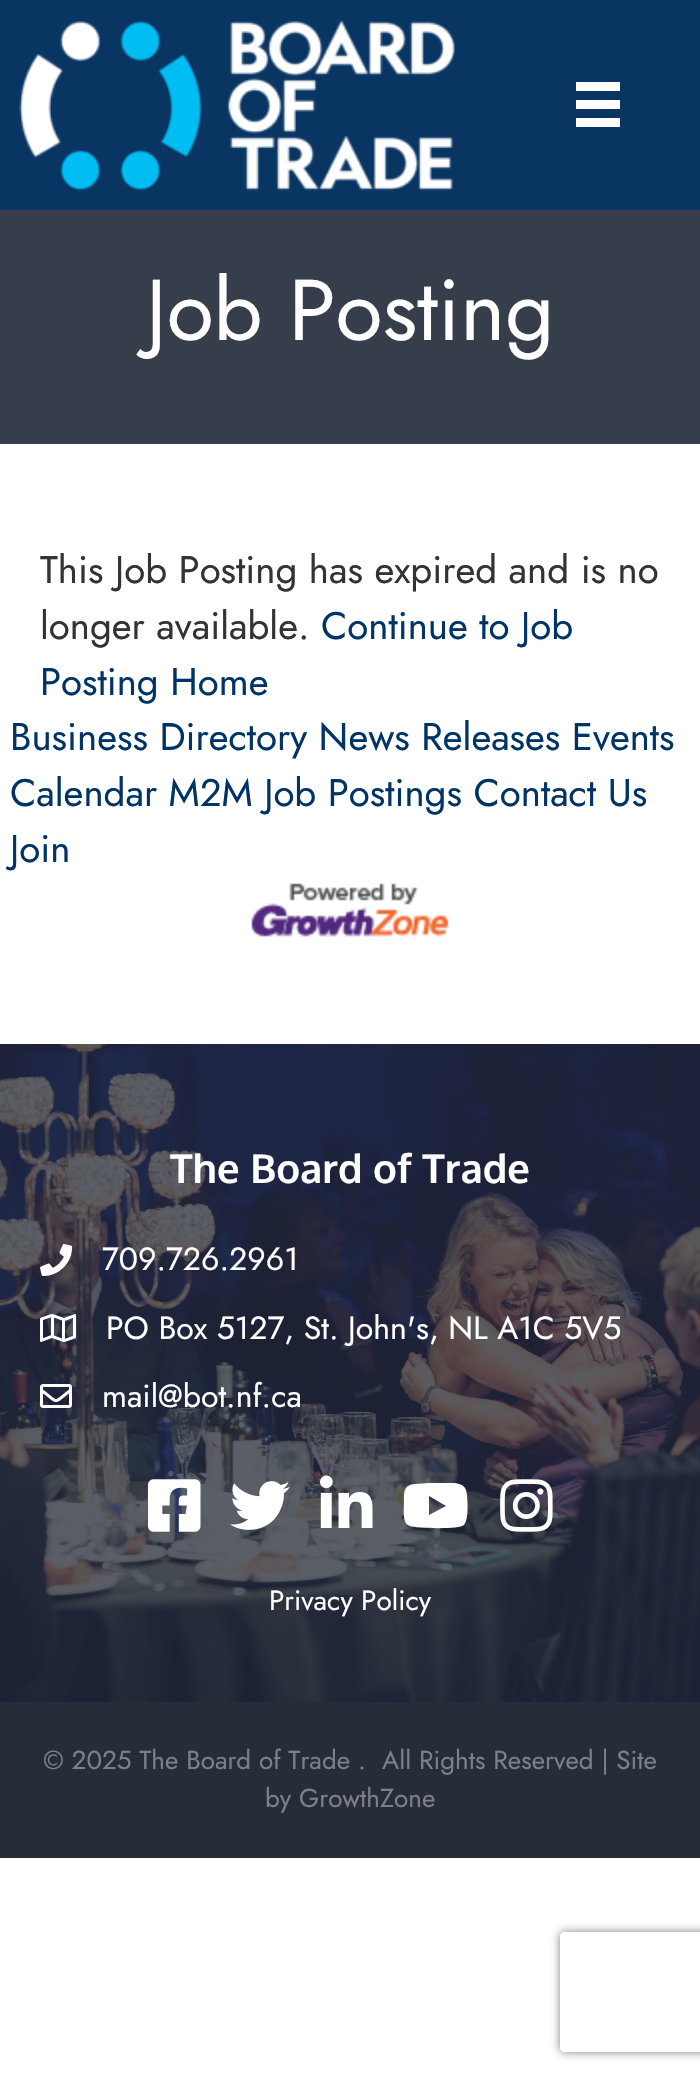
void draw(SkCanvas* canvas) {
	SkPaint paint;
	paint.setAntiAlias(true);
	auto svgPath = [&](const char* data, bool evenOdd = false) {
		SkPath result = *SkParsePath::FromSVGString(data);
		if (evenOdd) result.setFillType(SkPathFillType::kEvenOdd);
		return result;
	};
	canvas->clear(0xffffffff);
	paint.setColor(0xff093562);
	canvas->drawRect(SkRect::MakeXYWH(0, 0, 700, 210), paint);
	canvas->drawImageRect(SkImages::DeferredFromEncodedData(SkData::MakeFromFileName("img1.png")), SkRect::MakeXYWH(19, 20, 437, 171), SkSamplingOptions());
	paint.setColor(0xffffffff);
	canvas->drawRect(SkRect::MakeXYWH(576, 82, 44, 9), paint);
	canvas->drawRect(SkRect::MakeXYWH(576, 100, 44, 9), paint);
	canvas->drawRect(SkRect::MakeXYWH(576, 118, 44, 9), paint);
	paint.setColor(0xff363d4b);
	canvas->drawRect(SkRect::MakeXYWH(0, 210, 700, 234), paint);
	SkFont f1(fontMgr->matchFamilyStyle("Jost", SkFontStyle::Normal()), 86);
	f1.setSubpixel(true);
	paint.setColor(0xffffffff);
	canvas->drawString("Job Posting", 146, 340, f1, paint);
	SkFont f2(fontMgr->matchFamilyStyle("Jost", SkFontStyle::Normal()), 38.4);
	f2.setSubpixel(true);
	paint.setColor(0xff333333);
	canvas->drawString("This Job Posting has expired and is no", 40, 583, f2, paint);
	canvas->drawString("longer available.", 40, 639, f2, paint);
	paint.setColor(0xff003466);
	canvas->drawString("Continue to Job", 321, 639, f2, paint);
	canvas->drawString("Posting Home", 40, 695, f2, paint);
	canvas->drawString("Business Directory News Releases Events", 10, 750, f2, paint);
	canvas->drawString("Calendar M2M Job Postings Contact Us", 10, 806, f2, paint);
	canvas->drawString("Join", 10, 862, f2, paint);
	canvas->drawImageRect(SkImages::DeferredFromEncodedData(SkData::MakeFromFileName("img2.png")), SkRect::MakeXYWH(251, 883, 198, 54), SkSamplingOptions());
	canvas->drawImageRect(SkImages::DeferredFromEncodedData(SkData::MakeFromFileName("img3.png")), SkRect::MakeXYWH(0, 1044, 700, 658), SkSamplingOptions());
	SkFont f3(fontMgr->matchFamilyStyle("Oxygen", SkFontStyle::Bold()), 40);
	f3.setSubpixel(true);
	paint.setColor(0xffffffff);
	canvas->drawString("The Board of Trade", 170, 1183, f3, paint);
	canvas->drawImageRect(SkImages::DeferredFromEncodedData(SkData::MakeFromFileName("img4.png")), SkRect::MakeXYWH(40, 1244, 33, 32), SkSamplingOptions());
	SkFont f4(fontMgr->matchFamilyStyle("Jost", SkFontStyle::Normal()), 32);
	f4.setSubpixel(true);
	canvas->drawString("709.726.2961", 102, 1270, f4, paint);
	canvas->drawImageRect(SkImages::DeferredFromEncodedData(SkData::MakeFromFileName("img5.png")), SkRect::MakeXYWH(40, 1314, 36, 28), SkSamplingOptions());
	canvas->drawString("PO Box 5127, St. John's, NL A1C 5V5", 106, 1339, f4, paint);
	canvas->drawImageRect(SkImages::DeferredFromEncodedData(SkData::MakeFromFileName("img6.png")), SkRect::MakeXYWH(40, 1384, 32, 24), SkSamplingOptions());
	canvas->drawString("mail@bot.nf.ca", 102, 1407, f4, paint);
	canvas->drawImageRect(SkImages::DeferredFromEncodedData(SkData::MakeFromFileName("img7.png")), SkRect::MakeXYWH(148, 1479, 53, 53), SkSamplingOptions());
	canvas->drawImageRect(SkImages::DeferredFromEncodedData(SkData::MakeFromFileName("img8.png")), SkRect::MakeXYWH(230, 1481, 60, 49), SkSamplingOptions());
	canvas->drawImageRect(SkImages::DeferredFromEncodedData(SkData::MakeFromFileName("img9.png")), SkRect::MakeXYWH(320, 1475, 53, 53), SkSamplingOptions());
	canvas->drawPath(svgPath("M466 1490C468 1497 469 1520 464 1525C459 1530 414 1528 410 1526C407 1525 406 1524 405 1521C403 1515 404 1507 404 1501C404 1491 404 1485 415 1484L429 1483H449C455 1483 464 1483 466 1490ZM429 1515L446 1506L429 1496Z"), paint);
	canvas->drawImageRect(SkImages::DeferredFromEncodedData(SkData::MakeFromFileName("img10.png")), SkRect::MakeXYWH(500, 1479, 53, 53), SkSamplingOptions());
	SkFont f5(fontMgr->matchFamilyStyle("Jost", SkFontStyle::Normal()), 28);
	f5.setSubpixel(true);
	canvas->drawString("Privacy Policy", 269, 1610, f5, paint);
	paint.setColor(0xff262c38);
	canvas->drawRect(SkRect::MakeXYWH(0, 1702, 700, 156), paint);
	SkFont f6(fontMgr->matchFamilyStyle("Jost", SkFontStyle::Normal()), 26);
	f6.setSubpixel(true);
	paint.setColor(0xff7d8088);
	canvas->drawString("© 2025 The Board of Trade .", 43, 1769, f6, paint);
	canvas->drawString("All Rights Reserved | Site", 382, 1769, f6, paint);
	canvas->drawString("by GrowthZone", 265, 1807, f6, paint);
	canvas->save();
	canvas->clipPath(svgPath("M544 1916H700V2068H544ZM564 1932H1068C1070 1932 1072 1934 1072 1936V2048C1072 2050 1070 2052 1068 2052H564C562 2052 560 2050 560 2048V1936C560 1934 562 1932 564 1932Z", true), true);
	paint.setColor(0xff808080);
	paint.setMaskFilter(SkMaskFilter::MakeBlur(kNormal_SkBlurStyle, 5));
	canvas->drawRoundRect(SkRect::MakeXYWH(560, 1932, 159, 120), 4, 4, paint);
	paint.setMaskFilter(nullptr);
	canvas->restore();
}
